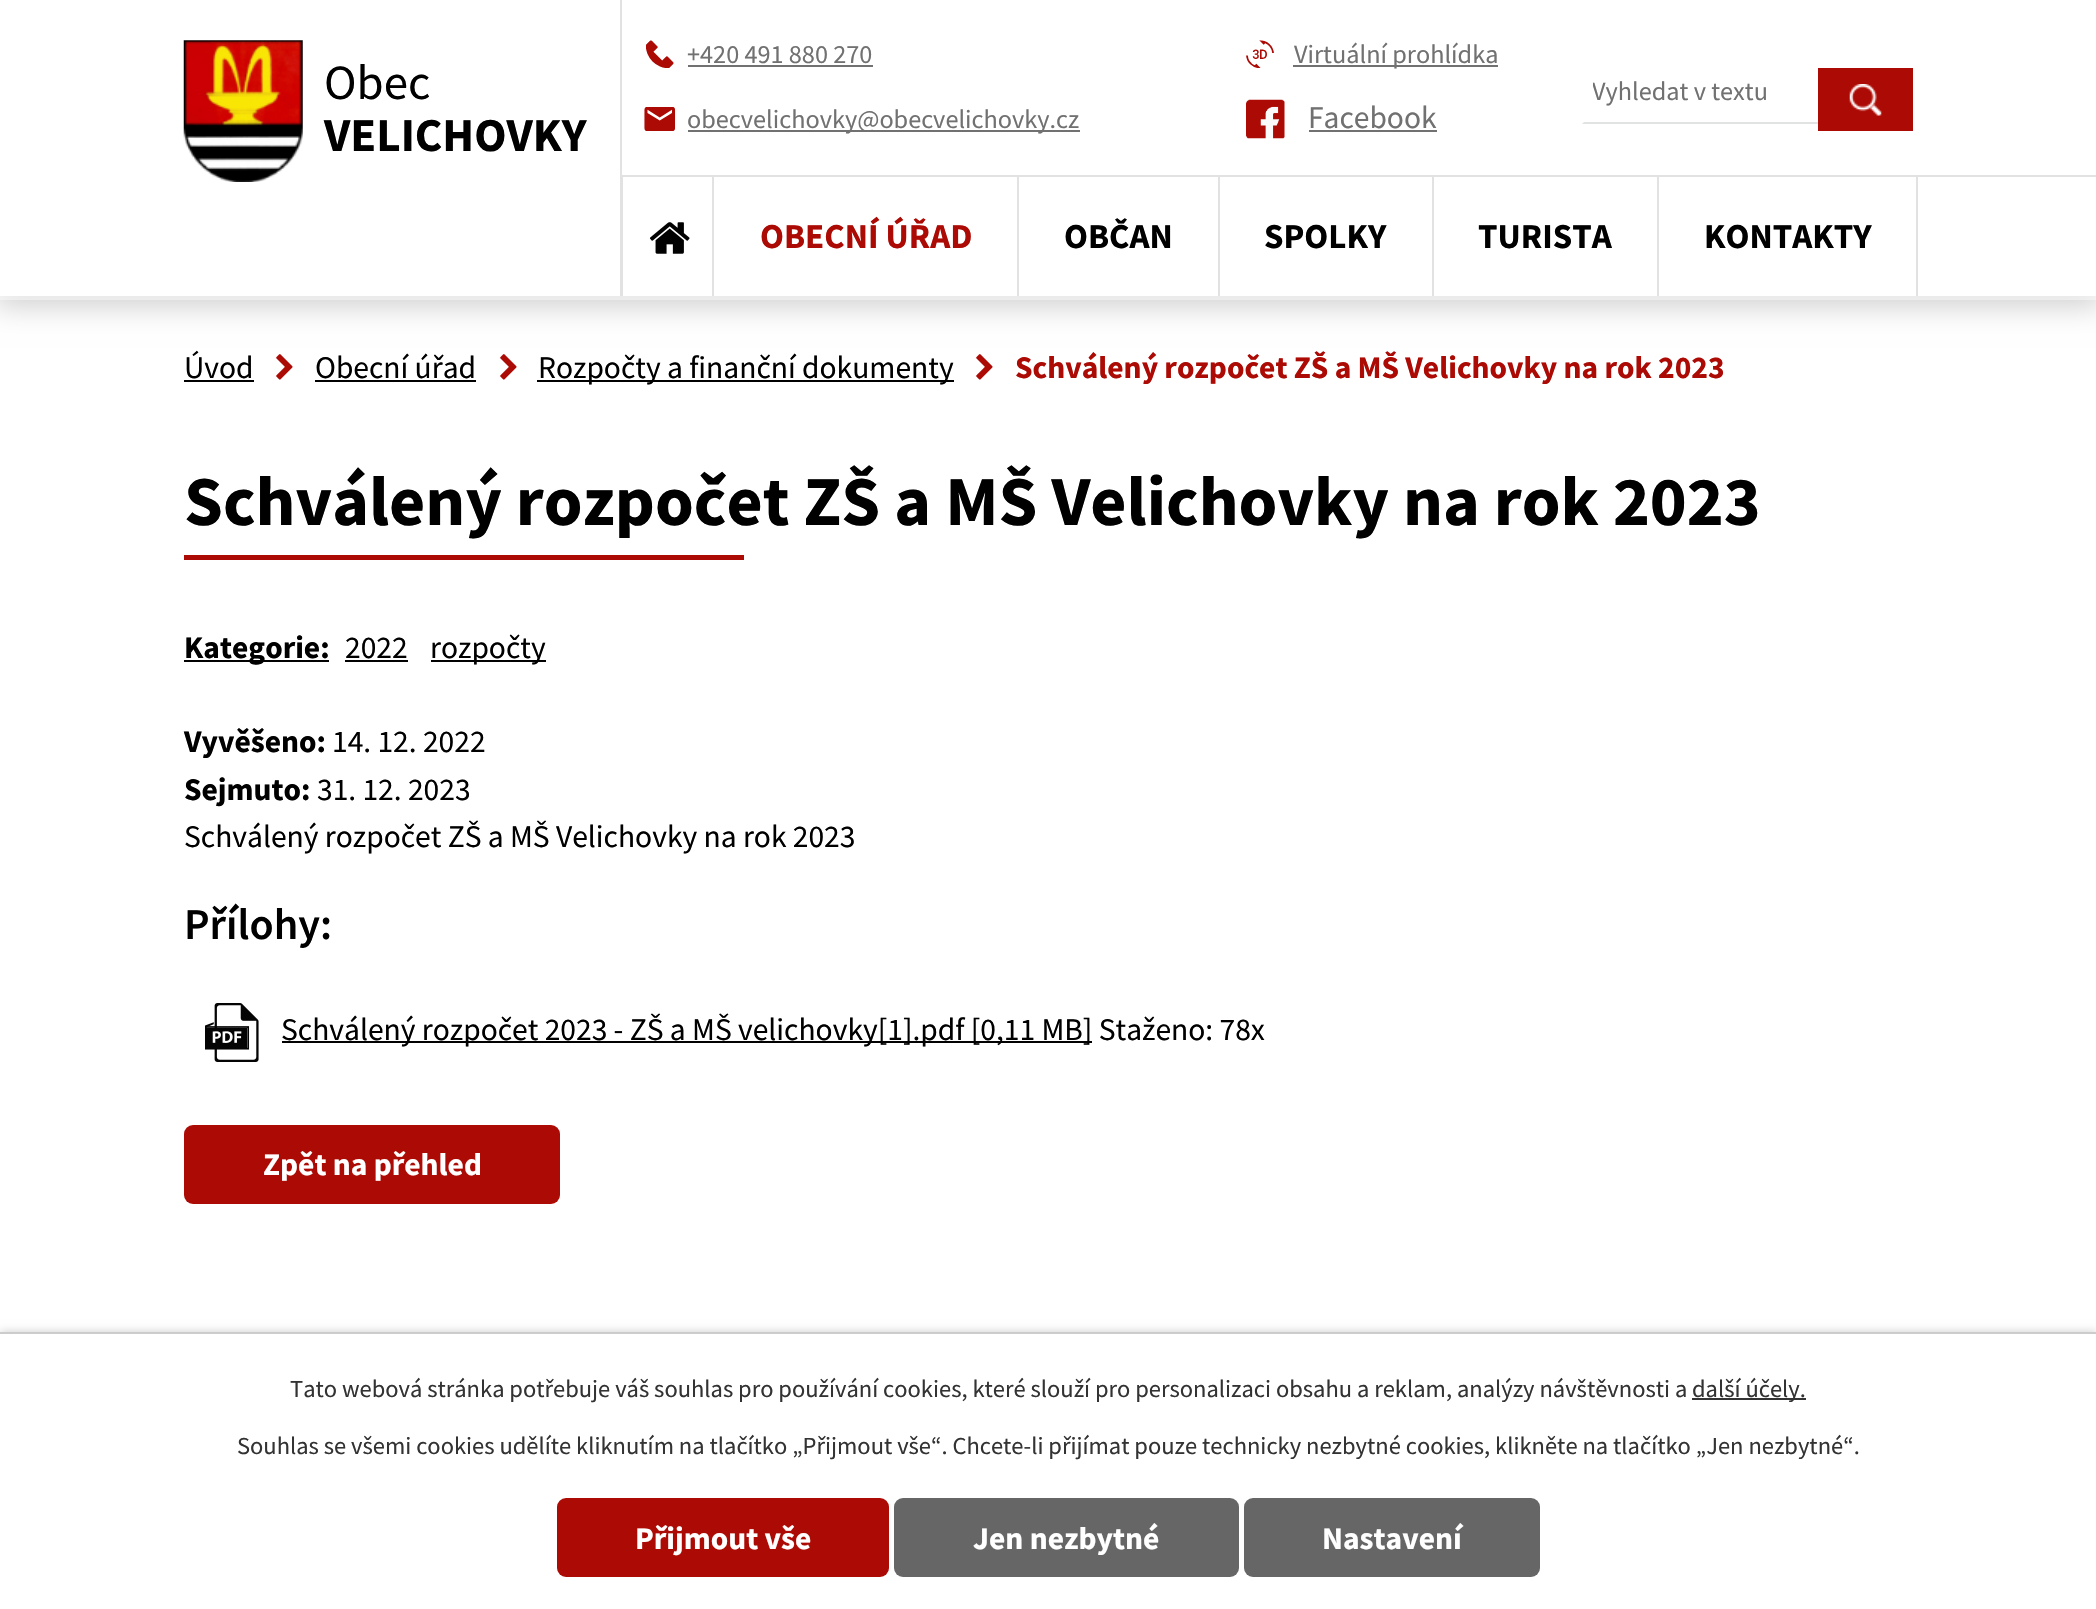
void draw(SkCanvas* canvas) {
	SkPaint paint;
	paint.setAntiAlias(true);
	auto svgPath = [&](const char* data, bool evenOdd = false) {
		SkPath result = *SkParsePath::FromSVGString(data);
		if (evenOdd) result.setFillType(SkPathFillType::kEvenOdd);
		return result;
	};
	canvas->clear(0xffffffff);
	canvas->save();
	canvas->clipPath(svgPath("M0 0H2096V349H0ZM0 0H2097V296H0Z", true), true);
	paint.setColor(0x30000000);
	paint.setMaskFilter(SkMaskFilter::MakeBlur(kNormal_SkBlurStyle, 14));
	canvas->drawRect(SkRect::MakeXYWH(-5, 0, 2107, 306), paint);
	paint.setMaskFilter(nullptr);
	canvas->restore();
	paint.setColor(0xebffffff);
	canvas->drawRect(SkRect::MakeXYWH(0, 295, 2096, 1), paint);
	paint.setColor(0xffe2e2e2);
	canvas->drawRect(SkRect::MakeXYWH(620, 175, 1476, 2), paint);
	canvas->drawRect(SkRect::MakeXYWH(620, 0, 2, 177), paint);
	canvas->drawImageRect(SkImages::DeferredFromEncodedData(SkData::MakeFromFileName("img1.png")), SkRect::MakeXYWH(646, 40, 28, 28), SkSamplingOptions());
	SkFont f1(fontMgr->matchFamilyStyle("Source Sans Pro", SkFontStyle::Normal()), 26.25);
	f1.setSubpixel(true);
	paint.setColor(0xff717171);
	canvas->drawString("+420 491 880 270", 687, 63, f1, paint);
	canvas->drawRect(SkRect::MakeXYWH(688, 65, 185, 2), paint);
	canvas->drawImageRect(SkImages::DeferredFromEncodedData(SkData::MakeFromFileName("img2.png")), SkRect::MakeXYWH(644, 107, 32, 24), SkSamplingOptions());
	canvas->drawRect(SkRect::MakeXYWH(688, 130, 392, 2), paint);
	canvas->drawString("obecvelichovky@obecvelichovky.cz", 687, 128, f1, paint);
	canvas->drawImageRect(SkImages::DeferredFromEncodedData(SkData::MakeFromFileName("img3.png")), SkRect::MakeXYWH(1246, 40, 28, 28), SkSamplingOptions());
	canvas->drawRect(SkRect::MakeXYWH(1293, 65, 205, 2), paint);
	canvas->drawString("Virtuální prohlídka", 1294, 63, f1, paint);
	canvas->drawImageRect(SkImages::DeferredFromEncodedData(SkData::MakeFromFileName("img4.png")), SkRect::MakeXYWH(1246, 99, 39, 40), SkSamplingOptions());
	SkFont f2(fontMgr->matchFamilyStyle("Source Sans Pro", SkFontStyle::Normal()), 31.5);
	f2.setSubpixel(true);
	canvas->drawString("Facebook", 1308, 128, f2, paint);
	canvas->drawRect(SkRect::MakeXYWH(1309, 130, 128, 2), paint);
	paint.setColor(0x85f9f9f9);
	canvas->drawRect(SkRect::MakeXYWH(0, 296, 2096, 4), paint);
	canvas->drawImageRect(SkImages::DeferredFromEncodedData(SkData::MakeFromFileName("img5.png")), SkRect::MakeXYWH(183, 40, 120, 142), SkSamplingOptions());
	SkFont f3(fontMgr->matchFamilyStyle("Source Sans Pro", SkFontStyle::Normal()), 49);
	f3.setSubpixel(true);
	paint.setColor(0xff000000);
	canvas->drawString("Obec", 324, 99, f3, paint);
	SkFont f4(fontMgr->matchFamilyStyle("Source Sans Pro", SkFontStyle::Bold()), 47.25);
	f4.setSubpixel(true);
	canvas->drawString("VELICHOVKY", 324, 151, f4, paint);
	paint.setColor(0xffe1e2e2);
	canvas->drawPath(svgPath("M1913 124H1582L1584 122H1911Z"), paint);
	canvas->save();
	canvas->clipRect(SkRect::MakeXYWH(1593, 74, 224, 33));
	paint.setColor(0xff717171);
	canvas->drawString("Vyhledat v textu", 1592, 100, f1, paint);
	canvas->restore();
	paint.setColor(0xffac0a04);
	canvas->drawRect(SkRect::MakeXYWH(1818, 68, 95, 63), paint);
	canvas->drawImageRect(SkImages::DeferredFromEncodedData(SkData::MakeFromFileName("img6.png")), SkRect::MakeXYWH(1849, 84, 33, 32), SkSamplingOptions());
	paint.setColor(0xffe2e2e2);
	canvas->drawRect(SkRect::MakeXYWH(620, 177, 3, 119), paint);
	canvas->drawRect(SkRect::MakeXYWH(712, 177, 2, 119), paint);
	canvas->drawImageRect(SkImages::DeferredFromEncodedData(SkData::MakeFromFileName("img7.png")), SkRect::MakeXYWH(649, 222, 41, 32), SkSamplingOptions());
	canvas->drawRect(SkRect::MakeXYWH(1017, 177, 2, 119), paint);
	SkFont f5(fontMgr->matchFamilyStyle("Source Sans Pro", SkFontStyle::Bold()), 35);
	f5.setSubpixel(true);
	paint.setColor(0xffac0a04);
	canvas->drawString("OBECNÍ ÚŘAD", 760, 248, f5, paint);
	paint.setColor(0xffe2e2e2);
	canvas->drawRect(SkRect::MakeXYWH(1218, 177, 2, 119), paint);
	paint.setColor(0xff000000);
	canvas->drawString("OBČAN", 1064, 248, f5, paint);
	paint.setColor(0xffe2e2e2);
	canvas->drawRect(SkRect::MakeXYWH(1432, 177, 2, 119), paint);
	paint.setColor(0xff000000);
	canvas->drawString("SPOLKY", 1264, 248, f5, paint);
	paint.setColor(0xffe2e2e2);
	canvas->drawRect(SkRect::MakeXYWH(1657, 177, 2, 119), paint);
	paint.setColor(0xff000000);
	canvas->drawString("TURISTA", 1478, 248, f5, paint);
	paint.setColor(0xffe2e2e2);
	canvas->drawRect(SkRect::MakeXYWH(1916, 177, 2, 119), paint);
	paint.setColor(0xff000000);
	canvas->drawString("KONTAKTY", 1704, 248, f5, paint);
	canvas->drawString("Úvod", 184, 378, f2, paint);
	canvas->drawRect(SkRect::MakeXYWH(184, 380, 70, 2), paint);
	canvas->drawImageRect(SkImages::DeferredFromEncodedData(SkData::MakeFromFileName("img8.png")), SkRect::MakeXYWH(276, 354, 17, 26), SkSamplingOptions());
	canvas->drawString("Obecní úřad", 315, 378, f2, paint);
	canvas->drawRect(SkRect::MakeXYWH(315, 380, 161, 2), paint);
	canvas->drawImageRect(SkImages::DeferredFromEncodedData(SkData::MakeFromFileName("img8.png")), SkRect::MakeXYWH(500, 354, 17, 26), SkSamplingOptions());
	canvas->drawRect(SkRect::MakeXYWH(537, 380, 417, 2), paint);
	canvas->drawString("Rozpočty a finanční dokumenty", 538, 378, f2, paint);
	canvas->drawImageRect(SkImages::DeferredFromEncodedData(SkData::MakeFromFileName("img8.png")), SkRect::MakeXYWH(976, 354, 17, 26), SkSamplingOptions());
	SkFont f6(fontMgr->matchFamilyStyle("Source Sans Pro", SkFontStyle::Bold()), 31.5);
	f6.setSubpixel(true);
	paint.setColor(0xffac0a04);
	canvas->drawString("Schválený rozpočet ZŠ a MŠ Velichovky na rok 2023", 1015, 378, f6, paint);
	SkFont f7(fontMgr->matchFamilyStyle("Source Sans Pro", SkFontStyle::Bold()), 70);
	f7.setSubpixel(true);
	paint.setColor(0xff000000);
	canvas->drawString("Schválený rozpočet ZŠ a MŠ Velichovky na rok 2023", 184, 525, f7, paint);
	paint.setColor(0xffac0a04);
	canvas->drawRect(SkRect::MakeXYWH(184, 555, 560, 5), paint);
	paint.setColor(0xff010101);
	canvas->drawRect(SkRect::MakeXYWH(184, 660, 145, 2), paint);
	paint.setColor(0xff000000);
	canvas->drawString("Kategorie:", 184, 658, f6, paint);
	canvas->drawString("2022", 345, 658, f2, paint);
	paint.setColor(0xff010101);
	canvas->drawRect(SkRect::MakeXYWH(345, 660, 63, 2), paint);
	canvas->drawRect(SkRect::MakeXYWH(431, 660, 115, 2), paint);
	paint.setColor(0xff000000);
	canvas->drawString("rozpočty", 430, 658, f2, paint);
	canvas->drawString("Vyvěšeno:", 184, 752, f6, paint);
	canvas->drawString("14. 12. 2022", 332, 752, f2, paint);
	canvas->drawString("Sejmuto:", 184, 800, f6, paint);
	canvas->drawString("31. 12. 2023", 317, 800, f2, paint);
	canvas->drawString("Schválený rozpočet ZŠ a MŠ Velichovky na rok 2023", 184, 847, f2, paint);
	SkFont f8(fontMgr->matchFamilyStyle("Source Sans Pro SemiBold", SkFontStyle(600, SkFontStyle::kNormal_Width, SkFontStyle::kUpright_Slant)), 44);
	f8.setSubpixel(true);
	canvas->drawString("Přílohy:", 184, 939, f8, paint);
	canvas->drawImageRect(SkImages::DeferredFromEncodedData(SkData::MakeFromFileName("img9.png")), SkRect::MakeXYWH(205, 1003, 54, 59), SkSamplingOptions());
	paint.setColor(0xff010101);
	canvas->drawRect(SkRect::MakeXYWH(282, 1041, 810, 2), paint);
	paint.setColor(0xff000000);
	canvas->drawString("Schválený rozpočet 2023 - ZŠ a MŠ velichovky[1].pdf [0,11 MB] Staženo: 78x", 281, 1040, f2, paint);
	paint.setColor(0xffac0a04);
	canvas->drawRoundRect(SkRect::MakeXYWH(184, 1125, 376, 79), 9, 9, paint);
	paint.setColor(0xffffffff);
	canvas->drawString("Zpět na přehled", 263, 1175, f6, paint);
	paint.setColor(0x33000000);
	paint.setMaskFilter(SkMaskFilter::MakeBlur(kNormal_SkBlurStyle, 4.5));
	canvas->drawRect(SkRect::MakeXYWH(0, 1332, 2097, 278), paint);
	paint.setMaskFilter(nullptr);
	paint.setColor(0xffffffff);
	canvas->drawRect(SkRect::MakeXYWH(0, 1334, 2096, 275), paint);
	paint.setColor(0xffcccccc);
	canvas->drawRect(SkRect::MakeXYWH(0, 1332, 2096, 2), paint);
	SkFont f9(fontMgr->matchFamilyStyle("Source Sans Pro", SkFontStyle::Normal()), 24.5);
	f9.setSubpixel(true);
	paint.setColor(0xff333333);
	canvas->drawString("Tato webová stránka potřebuje váš souhlas pro používání cookies, které slouží pro personalizaci obsahu a reklam, analýzy návštěvnosti a", 290, 1397, f9, paint);
	canvas->drawRect(SkRect::MakeXYWH(1692, 1398, 114, 2), paint);
	canvas->drawString("další účely.", 1692, 1397, f9, paint);
	canvas->drawString("Souhlas se všemi cookies udělíte kliknutím na tlačítko „Přijmout vše“. Chcete-li přijímat pouze technicky nezbytné cookies, klikněte na tlačítko „Jen nezbytné“.", 237, 1454, f9, paint);
	paint.setColor(0xffac0a04);
	canvas->drawRoundRect(SkRect::MakeXYWH(557, 1498, 332, 79), 9, 9, paint);
	paint.setColor(0xffffffff);
	canvas->drawString("Přijmout vše", 635, 1549, f6, paint);
	paint.setColor(0xff666666);
	canvas->drawRoundRect(SkRect::MakeXYWH(894, 1498, 345, 79), 9, 9, paint);
	paint.setColor(0xffffffff);
	canvas->drawString("Jen nezbytné", 973, 1549, f6, paint);
	paint.setColor(0xff666666);
	canvas->drawRoundRect(SkRect::MakeXYWH(1244, 1498, 296, 79), 9, 9, paint);
	paint.setColor(0xffffffff);
	canvas->drawString("Nastavení", 1322, 1549, f6, paint);
}
